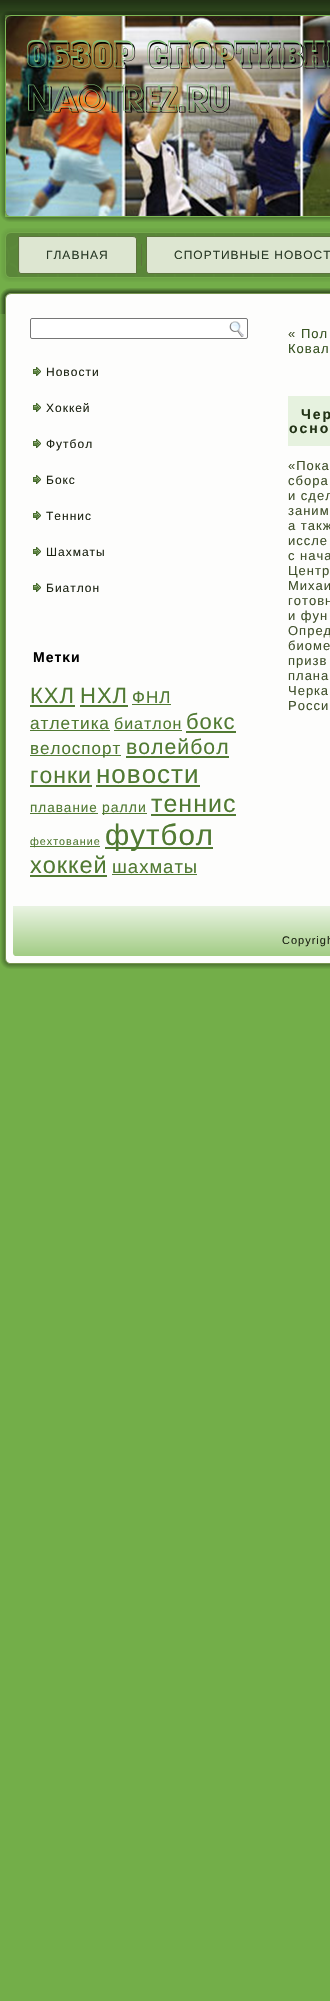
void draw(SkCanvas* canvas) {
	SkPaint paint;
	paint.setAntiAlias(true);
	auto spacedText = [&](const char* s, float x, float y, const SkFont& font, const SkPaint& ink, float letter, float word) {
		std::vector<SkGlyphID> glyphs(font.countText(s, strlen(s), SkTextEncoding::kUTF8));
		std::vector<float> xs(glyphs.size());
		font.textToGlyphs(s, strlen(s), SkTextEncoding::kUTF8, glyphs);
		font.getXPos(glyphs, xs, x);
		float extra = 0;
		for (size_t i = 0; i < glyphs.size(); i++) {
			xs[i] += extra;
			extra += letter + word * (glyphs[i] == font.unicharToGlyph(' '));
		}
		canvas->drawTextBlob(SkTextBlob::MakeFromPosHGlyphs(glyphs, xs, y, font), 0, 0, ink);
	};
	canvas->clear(0xff73ae49);
	canvas->drawImageRect(SkImages::DeferredFromEncodedData(SkData::MakeFromFileName("img1.png")), SkRect::MakeXYWH(0, 0, 330, 72), SkSamplingOptions());
	canvas->drawImageRect(SkImages::DeferredFromEncodedData(SkData::MakeFromFileName("img2.png")), SkRect::MakeXYWH(0, 11, 330, 211), SkSamplingOptions());
	canvas->drawImageRect(SkImages::DeferredFromEncodedData(SkData::MakeFromFileName("img3.png")), SkRect::MakeXYWH(5, 16, 325, 200), SkSamplingOptions());
	canvas->drawImageRect(SkImages::DeferredFromEncodedData(SkData::MakeFromFileName("img4.png")), SkRect::MakeXYWH(1, 228, 329, 54), SkSamplingOptions());
	canvas->drawImageRect(SkImages::DeferredFromEncodedData(SkData::MakeFromFileName("img5.png")), SkRect::MakeXYWH(18, 236, 115, 38), SkSamplingOptions());
	canvas->drawImageRect(SkImages::DeferredFromEncodedData(SkData::MakeFromFileName("img6.png")), SkRect::MakeXYWH(133, 236, 4, 38), SkSamplingOptions());
	SkFont f1(fontMgr->matchFamilyStyle("Liberation Sans", SkFontStyle::Normal()), 12);
	f1.setSubpixel(true);
	paint.setColor(0xff293a27);
	spacedText("ГЛАВНАЯ", 46, 259, f1, paint, 1, 0);
	paint.setColor(0xff5d743e);
	canvas->drawRect(SkRect::MakeXYWH(141, 244, 1, 22), paint);
	canvas->drawImageRect(SkImages::DeferredFromEncodedData(SkData::MakeFromFileName("img7.png")), SkRect::MakeXYWH(146, 236, 184, 38), SkSamplingOptions());
	paint.setColor(0xff293a27);
	spacedText("СПОРТИВНЫЕ НОВОСТ", 174, 259, f1, paint, 1, 0);
	canvas->drawImageRect(SkImages::DeferredFromEncodedData(SkData::MakeFromFileName("img8.png")), SkRect::MakeXYWH(0, 288, 330, 681), SkSamplingOptions());
	canvas->drawImageRect(SkImages::DeferredFromEncodedData(SkData::MakeFromFileName("img9.png")), SkRect::MakeXYWH(0, 288, 330, 26), SkSamplingOptions());
	canvas->drawImageRect(SkImages::DeferredFromEncodedData(SkData::MakeFromFileName("img10.png")), SkRect::MakeXYWH(0, 314, 330, 629), SkSamplingOptions());
	paint.setColor(0xffffffff);
	canvas->drawRoundRect(SkRect::MakeXYWH(30.5, 318.5, 217, 20), 1.5, 1.5, paint);
	paint.setStroke(true);
	paint.setStrokeWidth(1);
	paint.setColor(0xff767676);
	canvas->drawRoundRect(SkRect::MakeXYWH(30.5, 318.5, 217, 20), 1.5, 1.5, paint);
	canvas->drawImageRect(SkImages::DeferredFromEncodedData(SkData::MakeFromFileName("img11.png")), SkRect::MakeXYWH(229, 321, 15, 16), SkSamplingOptions());
	canvas->drawImageRect(SkImages::DeferredFromEncodedData(SkData::MakeFromFileName("img12.png")), SkRect::MakeXYWH(33, 367, 8, 9), SkSamplingOptions());
	paint.setStroke(false);
	paint.setColor(0xff1d2414);
	spacedText("Новости", 46, 376, f1, paint, 1, 0);
	canvas->drawImageRect(SkImages::DeferredFromEncodedData(SkData::MakeFromFileName("img12.png")), SkRect::MakeXYWH(33, 403, 8, 9), SkSamplingOptions());
	spacedText("Хоккей", 46, 412, f1, paint, 1, 0);
	canvas->drawImageRect(SkImages::DeferredFromEncodedData(SkData::MakeFromFileName("img12.png")), SkRect::MakeXYWH(33, 439, 8, 9), SkSamplingOptions());
	spacedText("Футбол", 46, 448, f1, paint, 1, 0);
	canvas->drawImageRect(SkImages::DeferredFromEncodedData(SkData::MakeFromFileName("img12.png")), SkRect::MakeXYWH(33, 475, 8, 9), SkSamplingOptions());
	spacedText("Бокс", 46, 484, f1, paint, 1, 0);
	canvas->drawImageRect(SkImages::DeferredFromEncodedData(SkData::MakeFromFileName("img12.png")), SkRect::MakeXYWH(33, 511, 8, 9), SkSamplingOptions());
	spacedText("Теннис", 46, 520, f1, paint, 1, 0);
	canvas->drawImageRect(SkImages::DeferredFromEncodedData(SkData::MakeFromFileName("img12.png")), SkRect::MakeXYWH(33, 547, 8, 9), SkSamplingOptions());
	spacedText("Шахматы", 46, 556, f1, paint, 1, 0);
	canvas->drawImageRect(SkImages::DeferredFromEncodedData(SkData::MakeFromFileName("img12.png")), SkRect::MakeXYWH(33, 583, 8, 9), SkSamplingOptions());
	spacedText("Биатлон", 46, 592, f1, paint, 1, 0);
	SkFont f2(fontMgr->matchFamilyStyle("Liberation Sans", SkFontStyle::Bold()), 14);
	f2.setSubpixel(true);
	paint.setColor(0xff000000);
	spacedText("Метκи", 33, 662, f2, paint, 1, 0);
	SkFont f3(fontMgr->matchFamilyStyle("Liberation Sans", SkFontStyle::Normal()), 22);
	f3.setSubpixel(true);
	paint.setColor(0xff517a33);
	spacedText("КХЛ", 30, 703, f3, paint, 1, 0);
	canvas->drawRect(SkRect::MakeXYWH(30, 705, 45, 2), paint);
	spacedText("НХЛ", 80, 703, f3, paint, 1, 0);
	canvas->drawRect(SkRect::MakeXYWH(80, 705, 48, 2), paint);
	SkFont f4(fontMgr->matchFamilyStyle("Liberation Sans", SkFontStyle::Normal()), 17);
	f4.setSubpixel(true);
	spacedText("ФНЛ", 132, 703, f4, paint, 1, 0);
	canvas->drawRect(SkRect::MakeXYWH(132, 704, 39, 1), paint);
	SkFont f5(fontMgr->matchFamilyStyle("Liberation Sans", SkFontStyle::Normal()), 17.25);
	f5.setSubpixel(true);
	spacedText("атлетика", 30, 729, f5, paint, 1, 0);
	canvas->drawRect(SkRect::MakeXYWH(30, 730, 80, 1), paint);
	SkFont f6(fontMgr->matchFamilyStyle("Liberation Sans", SkFontStyle::Normal()), 16);
	f6.setSubpixel(true);
	spacedText("биатлон", 114, 729, f6, paint, 1, 0);
	canvas->drawRect(SkRect::MakeXYWH(114, 730, 68, 1), paint);
	spacedText("бокс", 186, 729, f3, paint, 1, 0);
	canvas->drawRect(SkRect::MakeXYWH(186, 731, 50, 2), paint);
	canvas->drawRect(SkRect::MakeXYWH(30, 755, 91, 1), paint);
	spacedText("велоспорт", 30, 754, f4, paint, 1, 0);
	SkFont f7(fontMgr->matchFamilyStyle("Liberation Sans", SkFontStyle::Normal()), 21.25);
	f7.setSubpixel(true);
	spacedText("волейбол", 126, 754, f7, paint, 1, 0);
	canvas->drawRect(SkRect::MakeXYWH(126, 756, 103, 2), paint);
	SkFont f8(fontMgr->matchFamilyStyle("Liberation Sans", SkFontStyle::Normal()), 23);
	f8.setSubpixel(true);
	spacedText("гонки", 30, 783, f8, paint, 1, 0);
	canvas->drawRect(SkRect::MakeXYWH(30, 785, 62, 2), paint);
	SkFont f9(fontMgr->matchFamilyStyle("Liberation Sans", SkFontStyle::Normal()), 26);
	f9.setSubpixel(true);
	spacedText("новости", 96, 783, f9, paint, 1, 0);
	canvas->drawRect(SkRect::MakeXYWH(96, 785, 104, 2), paint);
	SkFont f10(fontMgr->matchFamilyStyle("Liberation Sans", SkFontStyle::Normal()), 13.5);
	f10.setSubpixel(true);
	spacedText("плавание", 30, 812, f10, paint, 1, 0);
	canvas->drawRect(SkRect::MakeXYWH(30, 813, 68, 1), paint);
	canvas->drawRect(SkRect::MakeXYWH(102, 813, 45, 1), paint);
	SkFont f11(fontMgr->matchFamilyStyle("Liberation Sans", SkFontStyle::Normal()), 14);
	f11.setSubpixel(true);
	spacedText("ралли", 102, 812, f11, paint, 1, 0);
	SkFont f12(fontMgr->matchFamilyStyle("Liberation Sans", SkFontStyle::Normal()), 25);
	f12.setSubpixel(true);
	spacedText("теннис", 151, 812, f12, paint, 1, 0);
	canvas->drawRect(SkRect::MakeXYWH(151, 814, 85, 2), paint);
	canvas->drawRect(SkRect::MakeXYWH(30, 846, 70, 1), paint);
	SkFont f13(fontMgr->matchFamilyStyle("Liberation Sans", SkFontStyle::Normal()), 10.75);
	f13.setSubpixel(true);
	spacedText("фехтование", 30, 845, f13, paint, 1, 0);
	canvas->drawRect(SkRect::MakeXYWH(105, 847, 108, 2), paint);
	SkFont f14(fontMgr->matchFamilyStyle("Liberation Sans", SkFontStyle::Normal()), 29.5);
	f14.setSubpixel(true);
	spacedText("футбол", 105, 845, f14, paint, 1, 0);
	SkFont f15(fontMgr->matchFamilyStyle("Liberation Sans", SkFontStyle::Normal()), 23.5);
	f15.setSubpixel(true);
	spacedText("хоккей", 30, 873, f15, paint, 1, 0);
	canvas->drawRect(SkRect::MakeXYWH(30, 875, 77, 2), paint);
	SkFont f16(fontMgr->matchFamilyStyle("Liberation Sans", SkFontStyle::Normal()), 18.5);
	f16.setSubpixel(true);
	spacedText("шахматы", 112, 873, f16, paint, 1, 0);
	canvas->drawRect(SkRect::MakeXYWH(112, 874, 85, 1), paint);
	SkFont f17(fontMgr->matchFamilyStyle("Liberation Sans", SkFontStyle::Normal()), 13);
	f17.setSubpixel(true);
	paint.setColor(0xff40502b);
	spacedText("«", 288, 338, f17, paint, 1, 0);
	paint.setColor(0xff375322);
	spacedText("Пол", 301, 338, f17, paint, 1, 0);
	spacedText("Ковал", 288, 353, f17, paint, 1, 0);
	paint.setColor(0xffe6f2df);
	canvas->drawRect(SkRect::MakeXYWH(288, 396, 42, 50), paint);
	paint.setColor(0xff213215);
	spacedText("Чер", 301, 419, f2, paint, 2, 0);
	spacedText("осно", 289, 433, f2, paint, 2, 0);
	paint.setColor(0xff40502b);
	spacedText("«Пока", 288, 470, f17, paint, 1, 0);
	spacedText("сбора", 288, 485, f17, paint, 1, 0);
	spacedText("и сдел", 288, 500, f17, paint, 1, 0);
	spacedText("заним", 288, 515, f17, paint, 1, 0);
	spacedText("а такж", 288, 530, f17, paint, 1, 0);
	spacedText("иссле", 288, 545, f17, paint, 1, 0);
	spacedText("с нача", 288, 560, f17, paint, 1, 0);
	spacedText("Центр", 288, 575, f17, paint, 1, 0);
	spacedText("Михаи", 288, 590, f17, paint, 1, 0);
	spacedText("готовн", 288, 605, f17, paint, 1, 0);
	spacedText("и фун", 288, 620, f17, paint, 1, 0);
	spacedText("Опред", 288, 635, f17, paint, 1, 0);
	spacedText("биоме", 288, 650, f17, paint, 1, 0);
	spacedText("призв", 288, 665, f17, paint, 1, 0);
	spacedText("плана", 288, 680, f17, paint, 1, 0);
	spacedText("Черка", 288, 695, f17, paint, 1, 0);
	spacedText("Росси", 288, 710, f17, paint, 1, 0);
	canvas->drawImageRect(SkImages::DeferredFromEncodedData(SkData::MakeFromFileName("img13.png")), SkRect::MakeXYWH(13, 906, 317, 50), SkSamplingOptions());
	SkFont f18(fontMgr->matchFamilyStyle("Liberation Sans", SkFontStyle::Normal()), 11);
	f18.setSubpixel(true);
	paint.setColor(0xff1d2414);
	spacedText("Copyrigh", 282, 944, f18, paint, 1, 0);
}
